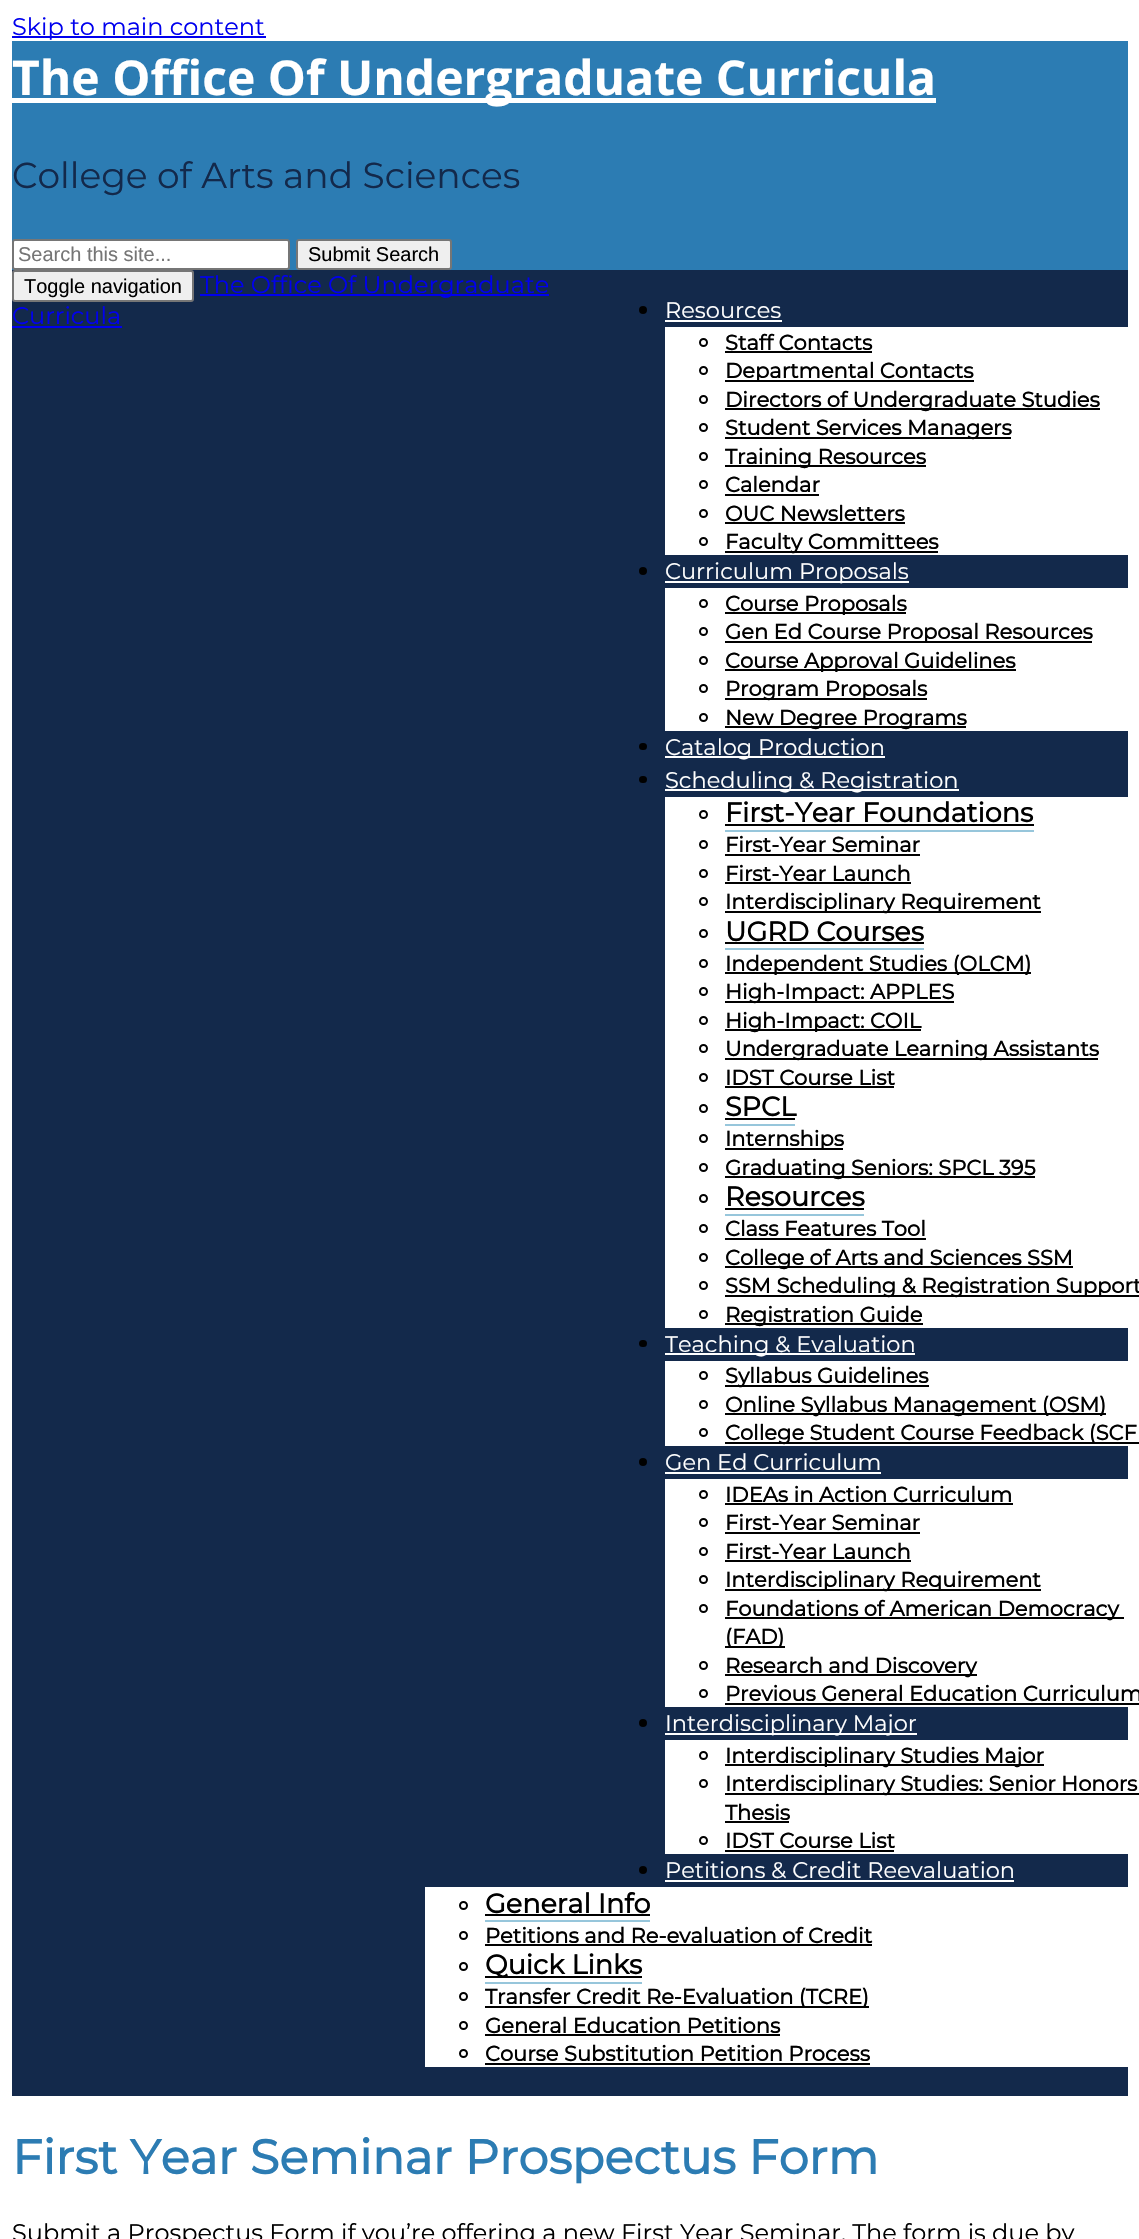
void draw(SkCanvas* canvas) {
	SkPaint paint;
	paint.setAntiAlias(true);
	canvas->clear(0xffffffff);
	paint.setColor(0xff0000ee);
	canvas->drawRect(SkRect::MakeXYWH(12, 36, 254, 2), paint);
	SkFont f1(fontMgr->matchFamilyStyle("Montserrat", SkFontStyle::Normal()), 24);
	f1.setSubpixel(true);
	canvas->drawString("Skip to main content", 12, 35, f1, paint);
	paint.setColor(0xff2c7cb3);
	canvas->drawRect(SkRect::MakeXYWH(12, 41, 1116, 229), paint);
	paint.setColor(0xffffffff);
	canvas->drawRect(SkRect::MakeXYWH(12, 98, 924, 5), paint);
	SkFont f2(fontMgr->matchFamilyStyle("Open Sans", SkFontStyle::Bold()), 48);
	f2.setSubpixel(true);
	canvas->drawString("The Office Of Undergraduate Curricula", 12, 95, f2, paint);
	SkFont f3(fontMgr->matchFamilyStyle("Montserrat", SkFontStyle::Normal()), 36);
	f3.setSubpixel(true);
	paint.setColor(0xff13294b);
	canvas->drawString("College of Arts and Sciences", 12, 188, f3, paint);
	paint.setColor(0xffffffff);
	canvas->drawRoundRect(SkRect::MakeXYWH(13, 240, 276, 29), 2, 2, paint);
	paint.setStroke(true);
	paint.setStrokeWidth(2);
	paint.setColor(0xff767676);
	canvas->drawRoundRect(SkRect::MakeXYWH(13, 240, 276, 29), 2, 2, paint);
	SkFont f4(fontMgr->matchFamilyStyle("Liberation Sans", SkFontStyle::Normal()), 20);
	f4.setSubpixel(true);
	paint.setStroke(false);
	paint.setColor(0xff757575);
	canvas->drawString("Search this site...", 18, 261, f4, paint);
	paint.setColor(0xffefefef);
	canvas->drawRoundRect(SkRect::MakeXYWH(297, 240, 154, 29), 2, 2, paint);
	paint.setStroke(true);
	paint.setColor(0xff767676);
	canvas->drawRoundRect(SkRect::MakeXYWH(297, 240, 154, 29), 2, 2, paint);
	paint.setStroke(false);
	paint.setColor(0xff000000);
	canvas->drawString("Submit Search", 308, 261, f4, paint);
	paint.setColor(0xff13294b);
	canvas->drawRect(SkRect::MakeXYWH(12, 270, 1116, 1826), paint);
	paint.setColor(0xffefefef);
	canvas->drawRoundRect(SkRect::MakeXYWH(13, 271, 180, 30), 2, 2, paint);
	paint.setStroke(true);
	paint.setColor(0xff767676);
	canvas->drawRoundRect(SkRect::MakeXYWH(13, 271, 180, 30), 2, 2, paint);
	paint.setStroke(false);
	paint.setColor(0xff000000);
	canvas->drawString("Toggle navigation", 24, 293, f4, paint);
	paint.setColor(0xff0000ee);
	canvas->drawRect(SkRect::MakeXYWH(200, 294, 349, 2), paint);
	canvas->drawString("The Office Of Undergraduate", 200, 293, f1, paint);
	canvas->drawString("Curricula", 12, 324, f1, paint);
	canvas->drawRect(SkRect::MakeXYWH(12, 326, 110, 2), paint);
	paint.setColor(0xff000000);
	canvas->drawCircle(643, 310, 4, paint);
	SkFont f5(fontMgr->matchFamilyStyle("Montserrat", SkFontStyle::Normal()), 22.5);
	f5.setSubpixel(true);
	paint.setColor(0xffffffff);
	canvas->drawString("Resources", 665, 318, f5, paint);
	canvas->drawRect(SkRect::MakeXYWH(665, 320, 117, 2), paint);
	canvas->drawRect(SkRect::MakeXYWH(665, 327, 463, 228), paint);
	paint.setStroke(true);
	paint.setColor(0xff000000);
	canvas->drawCircle(703.5, 342.5, 3.5, paint);
	SkFont f6(fontMgr->matchFamilyStyle("Montserrat", SkFontStyle::Bold()), 21);
	f6.setSubpixel(true);
	paint.setStroke(false);
	canvas->drawString("Staff Contacts", 725, 350, f6, paint);
	canvas->drawRect(SkRect::MakeXYWH(725, 351, 147, 2), paint);
	paint.setStroke(true);
	canvas->drawCircle(703.5, 370.5, 3.5, paint);
	paint.setStroke(false);
	canvas->drawRect(SkRect::MakeXYWH(725, 380, 249, 2), paint);
	canvas->drawString("Departmental Contacts", 725, 378, f6, paint);
	paint.setStroke(true);
	canvas->drawCircle(703.5, 399.5, 3.5, paint);
	paint.setStroke(false);
	canvas->drawRect(SkRect::MakeXYWH(725, 408, 375, 2), paint);
	canvas->drawString("Directors of Undergraduate Studies", 725, 407, f6, paint);
	paint.setStroke(true);
	canvas->drawCircle(703.5, 427.5, 3.5, paint);
	paint.setStroke(false);
	canvas->drawRect(SkRect::MakeXYWH(725, 437, 286, 2), paint);
	canvas->drawString("Student Services Managers", 725, 435, f6, paint);
	paint.setStroke(true);
	canvas->drawCircle(703.5, 456.5, 3.5, paint);
	paint.setStroke(false);
	canvas->drawRect(SkRect::MakeXYWH(725, 465, 201, 2), paint);
	canvas->drawString("Training Resources", 725, 464, f6, paint);
	paint.setStroke(true);
	canvas->drawCircle(703.5, 484.5, 3.5, paint);
	paint.setStroke(false);
	canvas->drawString("Calendar", 725, 492, f6, paint);
	canvas->drawRect(SkRect::MakeXYWH(725, 494, 94, 2), paint);
	paint.setStroke(true);
	canvas->drawCircle(703.5, 513.5, 3.5, paint);
	paint.setStroke(false);
	canvas->drawString("OUC Newsletters", 725, 521, f6, paint);
	canvas->drawRect(SkRect::MakeXYWH(725, 522, 180, 2), paint);
	paint.setStroke(true);
	canvas->drawCircle(703.5, 541.5, 3.5, paint);
	paint.setStroke(false);
	canvas->drawRect(SkRect::MakeXYWH(725, 551, 213, 2), paint);
	canvas->drawString("Faculty Committees", 725, 549, f6, paint);
	canvas->drawCircle(643, 571, 4, paint);
	paint.setColor(0xffffffff);
	canvas->drawRect(SkRect::MakeXYWH(665, 581, 244, 2), paint);
	canvas->drawString("Curriculum Proposals", 665, 579, f5, paint);
	canvas->drawRect(SkRect::MakeXYWH(665, 588, 463, 143), paint);
	paint.setStroke(true);
	paint.setColor(0xff000000);
	canvas->drawCircle(703.5, 603.5, 3.5, paint);
	paint.setStroke(false);
	canvas->drawRect(SkRect::MakeXYWH(725, 612, 181, 2), paint);
	canvas->drawString("Course Proposals", 725, 611, f6, paint);
	paint.setStroke(true);
	canvas->drawCircle(703.5, 631.5, 3.5, paint);
	paint.setStroke(false);
	canvas->drawRect(SkRect::MakeXYWH(725, 641, 367, 2), paint);
	canvas->drawString("Gen Ed Course Proposal Resources", 725, 639, f6, paint);
	paint.setStroke(true);
	canvas->drawCircle(703.5, 660.5, 3.5, paint);
	paint.setStroke(false);
	canvas->drawRect(SkRect::MakeXYWH(725, 669, 291, 2), paint);
	canvas->drawString("Course Approval Guidelines", 725, 668, f6, paint);
	paint.setStroke(true);
	canvas->drawCircle(703.5, 688.5, 3.5, paint);
	paint.setStroke(false);
	canvas->drawRect(SkRect::MakeXYWH(725, 698, 202, 2), paint);
	canvas->drawString("Program Proposals", 725, 696, f6, paint);
	paint.setStroke(true);
	canvas->drawCircle(703.5, 717.5, 3.5, paint);
	paint.setStroke(false);
	canvas->drawRect(SkRect::MakeXYWH(725, 726, 241, 2), paint);
	canvas->drawString("New Degree Programs", 725, 725, f6, paint);
	canvas->drawRoundRect(SkRect::MakeXYWH(639, 743, 8, 7), 3.5, 3.5, paint);
	paint.setColor(0xffffffff);
	canvas->drawRect(SkRect::MakeXYWH(665, 756, 220, 2), paint);
	canvas->drawString("Catalog Production", 665, 755, f5, paint);
	paint.setColor(0xff000000);
	canvas->drawRoundRect(SkRect::MakeXYWH(639, 776, 8, 7), 3.5, 3.5, paint);
	paint.setColor(0xffffffff);
	canvas->drawRect(SkRect::MakeXYWH(665, 789, 294, 2), paint);
	canvas->drawString("Scheduling & Registration", 665, 788, f5, paint);
	canvas->drawRect(SkRect::MakeXYWH(665, 797, 463, 531), paint);
	paint.setStroke(true);
	paint.setColor(0xff000000);
	canvas->drawCircle(703.5, 814.5, 3.5, paint);
	SkFont f7(fontMgr->matchFamilyStyle("Montserrat", SkFontStyle::Bold()), 27);
	f7.setSubpixel(true);
	paint.setStroke(false);
	canvas->drawString("First-Year Foundations", 725, 822, f7, paint);
	paint.setColor(0xff97c6db);
	canvas->drawRect(SkRect::MakeXYWH(725, 830, 309, 2), paint);
	paint.setColor(0xff000000);
	canvas->drawRect(SkRect::MakeXYWH(725, 824, 309, 2), paint);
	paint.setStroke(true);
	canvas->drawCircle(703.5, 844.5, 3.5, paint);
	paint.setStroke(false);
	canvas->drawString("First-Year Seminar", 725, 852, f6, paint);
	canvas->drawRect(SkRect::MakeXYWH(725, 854, 195, 2), paint);
	paint.setStroke(true);
	canvas->drawCircle(703.5, 873.5, 3.5, paint);
	paint.setStroke(false);
	canvas->drawString("First-Year Launch", 725, 881, f6, paint);
	canvas->drawRect(SkRect::MakeXYWH(725, 882, 186, 2), paint);
	paint.setStroke(true);
	canvas->drawCircle(703.5, 901.5, 3.5, paint);
	paint.setStroke(false);
	canvas->drawRect(SkRect::MakeXYWH(725, 911, 316, 2), paint);
	canvas->drawString("Interdisciplinary Requirement", 725, 909, f6, paint);
	paint.setStroke(true);
	canvas->drawCircle(703.5, 933.5, 3.5, paint);
	paint.setStroke(false);
	canvas->drawString("UGRD Courses", 725, 941, f7, paint);
	paint.setColor(0xff97c6db);
	canvas->drawRect(SkRect::MakeXYWH(725, 948, 199, 2), paint);
	paint.setColor(0xff000000);
	canvas->drawRect(SkRect::MakeXYWH(725, 942, 199, 2), paint);
	paint.setStroke(true);
	canvas->drawCircle(703.5, 963.5, 3.5, paint);
	paint.setStroke(false);
	canvas->drawRect(SkRect::MakeXYWH(725, 972, 306, 2), paint);
	canvas->drawString("Independent Studies (OLCM)", 725, 971, f6, paint);
	paint.setStroke(true);
	canvas->drawCircle(703.5, 991.5, 3.5, paint);
	paint.setStroke(false);
	canvas->drawRect(SkRect::MakeXYWH(725, 1001, 229, 2), paint);
	canvas->drawString("High-Impact: APPLES", 725, 999, f6, paint);
	paint.setStroke(true);
	canvas->drawCircle(703.5, 1020.5, 3.5, paint);
	paint.setStroke(false);
	canvas->drawRect(SkRect::MakeXYWH(725, 1029, 196, 2), paint);
	canvas->drawString("High-Impact: COIL", 725, 1028, f6, paint);
	paint.setStroke(true);
	canvas->drawCircle(703.5, 1048.5, 3.5, paint);
	paint.setStroke(false);
	canvas->drawRect(SkRect::MakeXYWH(725, 1058, 373, 2), paint);
	canvas->drawString("Undergraduate Learning Assistants", 725, 1056, f6, paint);
	paint.setStroke(true);
	canvas->drawCircle(703.5, 1077.5, 3.5, paint);
	paint.setStroke(false);
	canvas->drawString("IDST Course List", 725, 1085, f6, paint);
	canvas->drawRect(SkRect::MakeXYWH(725, 1086, 169, 2), paint);
	paint.setStroke(true);
	canvas->drawCircle(703.5, 1108.5, 3.5, paint);
	paint.setStroke(false);
	canvas->drawString("SPCL", 725, 1116, f7, paint);
	paint.setColor(0xff97c6db);
	canvas->drawRect(SkRect::MakeXYWH(725, 1124, 70, 2), paint);
	paint.setColor(0xff000000);
	canvas->drawRect(SkRect::MakeXYWH(725, 1118, 70, 2), paint);
	paint.setStroke(true);
	canvas->drawCircle(703.5, 1138.5, 3.5, paint);
	paint.setStroke(false);
	canvas->drawRect(SkRect::MakeXYWH(725, 1148, 118, 2), paint);
	canvas->drawString("Internships", 725, 1146, f6, paint);
	paint.setStroke(true);
	canvas->drawCircle(703.5, 1167.5, 3.5, paint);
	paint.setStroke(false);
	canvas->drawRect(SkRect::MakeXYWH(725, 1176, 310, 2), paint);
	canvas->drawString("Graduating Seniors: SPCL 395", 725, 1175, f6, paint);
	paint.setStroke(true);
	canvas->drawCircle(703.5, 1198.5, 3.5, paint);
	paint.setStroke(false);
	canvas->drawString("Resources", 725, 1206, f7, paint);
	paint.setColor(0xff97c6db);
	canvas->drawRect(SkRect::MakeXYWH(725, 1214, 139, 2), paint);
	paint.setColor(0xff000000);
	canvas->drawRect(SkRect::MakeXYWH(725, 1208, 139, 2), paint);
	paint.setStroke(true);
	canvas->drawCircle(703.5, 1228.5, 3.5, paint);
	paint.setStroke(false);
	canvas->drawString("Class Features Tool", 725, 1236, f6, paint);
	canvas->drawRect(SkRect::MakeXYWH(725, 1238, 201, 2), paint);
	paint.setStroke(true);
	canvas->drawCircle(703.5, 1257.5, 3.5, paint);
	paint.setStroke(false);
	canvas->drawRect(SkRect::MakeXYWH(725, 1266, 348, 2), paint);
	canvas->drawString("College of Arts and Sciences SSM", 725, 1265, f6, paint);
	paint.setStroke(true);
	canvas->drawCircle(703.5, 1285.5, 3.5, paint);
	paint.setStroke(false);
	canvas->drawRect(SkRect::MakeXYWH(725, 1295, 414, 2), paint);
	canvas->drawString("SSM Scheduling & Registration Support", 725, 1293, f6, paint);
	paint.setStroke(true);
	canvas->drawCircle(703.5, 1314.5, 3.5, paint);
	paint.setStroke(false);
	canvas->drawRect(SkRect::MakeXYWH(725, 1323, 198, 2), paint);
	canvas->drawString("Registration Guide", 725, 1322, f6, paint);
	canvas->drawRoundRect(SkRect::MakeXYWH(639, 1340, 8, 7), 3.5, 3.5, paint);
	paint.setColor(0xffffffff);
	canvas->drawRect(SkRect::MakeXYWH(665, 1353, 250, 2), paint);
	canvas->drawString("Teaching & Evaluation", 665, 1352, f5, paint);
	canvas->drawRect(SkRect::MakeXYWH(665, 1361, 463, 85), paint);
	paint.setStroke(true);
	paint.setColor(0xff000000);
	canvas->drawCircle(703.5, 1375.5, 3.5, paint);
	paint.setStroke(false);
	canvas->drawRect(SkRect::MakeXYWH(725, 1385, 204, 2), paint);
	canvas->drawString("Syllabus Guidelines", 725, 1383, f6, paint);
	paint.setStroke(true);
	canvas->drawCircle(703.5, 1404.5, 3.5, paint);
	paint.setStroke(false);
	canvas->drawRect(SkRect::MakeXYWH(725, 1413, 381, 2), paint);
	canvas->drawString("Online Syllabus Management (OSM)", 725, 1412, f6, paint);
	paint.setStroke(true);
	canvas->drawCircle(703.5, 1432.5, 3.5, paint);
	paint.setStroke(false);
	canvas->drawRect(SkRect::MakeXYWH(725, 1442, 414, 2), paint);
	canvas->drawString("College Student Course Feedback (SCF", 725, 1440, f6, paint);
	canvas->drawCircle(643, 1462, 4, paint);
	paint.setColor(0xffffffff);
	canvas->drawString("Gen Ed Curriculum", 665, 1470, f5, paint);
	canvas->drawRect(SkRect::MakeXYWH(665, 1472, 216, 2), paint);
	canvas->drawRect(SkRect::MakeXYWH(665, 1479, 463, 228), paint);
	paint.setStroke(true);
	paint.setColor(0xff000000);
	canvas->drawCircle(703.5, 1494.5, 3.5, paint);
	paint.setStroke(false);
	canvas->drawString("IDEAs in Action Curriculum", 725, 1502, f6, paint);
	canvas->drawRect(SkRect::MakeXYWH(725, 1503, 288, 2), paint);
	paint.setStroke(true);
	canvas->drawCircle(703.5, 1522.5, 3.5, paint);
	paint.setStroke(false);
	canvas->drawString("First-Year Seminar", 725, 1530, f6, paint);
	canvas->drawRect(SkRect::MakeXYWH(725, 1532, 195, 2), paint);
	paint.setStroke(true);
	canvas->drawCircle(703.5, 1551.5, 3.5, paint);
	paint.setStroke(false);
	canvas->drawString("First-Year Launch", 725, 1559, f6, paint);
	canvas->drawRect(SkRect::MakeXYWH(725, 1560, 186, 2), paint);
	paint.setStroke(true);
	canvas->drawCircle(703.5, 1579.5, 3.5, paint);
	paint.setStroke(false);
	canvas->drawRect(SkRect::MakeXYWH(725, 1589, 316, 2), paint);
	canvas->drawString("Interdisciplinary Requirement", 725, 1587, f6, paint);
	paint.setStroke(true);
	canvas->drawCircle(703.5, 1608.5, 3.5, paint);
	paint.setStroke(false);
	canvas->drawRect(SkRect::MakeXYWH(725, 1617, 399, 2), paint);
	canvas->drawString("Foundations of American Democracy", 725, 1616, f6, paint);
	canvas->drawRect(SkRect::MakeXYWH(725, 1646, 60, 2), paint);
	canvas->drawString("(FAD)", 725, 1644, f6, paint);
	paint.setStroke(true);
	canvas->drawCircle(703.5, 1665.5, 3.5, paint);
	paint.setStroke(false);
	canvas->drawRect(SkRect::MakeXYWH(725, 1674, 252, 2), paint);
	canvas->drawString("Research and Discovery", 725, 1673, f6, paint);
	paint.setStroke(true);
	canvas->drawCircle(703.5, 1693.5, 3.5, paint);
	paint.setStroke(false);
	canvas->drawString("Previous General Education Curriculum", 725, 1701, f6, paint);
	canvas->drawRect(SkRect::MakeXYWH(725, 1703, 414, 2), paint);
	canvas->drawCircle(643, 1723, 4, paint);
	paint.setColor(0xffffffff);
	canvas->drawRect(SkRect::MakeXYWH(665, 1733, 252, 2), paint);
	canvas->drawString("Interdisciplinary Major", 665, 1731, f5, paint);
	canvas->drawRect(SkRect::MakeXYWH(665, 1740, 463, 114), paint);
	paint.setStroke(true);
	paint.setColor(0xff000000);
	canvas->drawCircle(703.5, 1755.5, 3.5, paint);
	paint.setStroke(false);
	canvas->drawRect(SkRect::MakeXYWH(725, 1764, 319, 2), paint);
	canvas->drawString("Interdisciplinary Studies Major", 725, 1763, f6, paint);
	paint.setStroke(true);
	canvas->drawCircle(703.5, 1783.5, 3.5, paint);
	paint.setStroke(false);
	canvas->drawRect(SkRect::MakeXYWH(725, 1793, 414, 2), paint);
	canvas->drawString("Interdisciplinary Studies: Senior Honors", 725, 1791, f6, paint);
	canvas->drawString("Thesis", 725, 1820, f6, paint);
	canvas->drawRect(SkRect::MakeXYWH(725, 1821, 64, 2), paint);
	paint.setStroke(true);
	canvas->drawCircle(703.5, 1840.5, 3.5, paint);
	paint.setStroke(false);
	canvas->drawString("IDST Course List", 725, 1848, f6, paint);
	canvas->drawRect(SkRect::MakeXYWH(725, 1850, 169, 2), paint);
	canvas->drawCircle(643, 1870, 4, paint);
	paint.setColor(0xffffffff);
	canvas->drawString("Petitions & Credit Reevaluation", 665, 1878, f5, paint);
	canvas->drawRect(SkRect::MakeXYWH(665, 1880, 349, 2), paint);
	canvas->drawRect(SkRect::MakeXYWH(425, 1887, 703, 180), paint);
	paint.setStroke(true);
	paint.setColor(0xff000000);
	canvas->drawCircle(463.5, 1905.5, 3.5, paint);
	paint.setStroke(false);
	canvas->drawString("General Info", 485, 1913, f7, paint);
	paint.setColor(0xff97c6db);
	canvas->drawRect(SkRect::MakeXYWH(485, 1920, 165, 2), paint);
	paint.setColor(0xff000000);
	canvas->drawRect(SkRect::MakeXYWH(485, 1914, 165, 2), paint);
	paint.setStroke(true);
	canvas->drawCircle(463.5, 1935.5, 3.5, paint);
	paint.setStroke(false);
	canvas->drawString("Petitions and Re-evaluation of Credit", 485, 1943, f6, paint);
	canvas->drawRect(SkRect::MakeXYWH(485, 1944, 387, 2), paint);
	paint.setStroke(true);
	canvas->drawCircle(463.5, 1966.5, 3.5, paint);
	paint.setStroke(false);
	canvas->drawRect(SkRect::MakeXYWH(485, 1976, 157, 2), paint);
	canvas->drawString("Quick Links", 485, 1974, f7, paint);
	paint.setColor(0xff97c6db);
	canvas->drawRect(SkRect::MakeXYWH(485, 1982, 157, 2), paint);
	paint.setStroke(true);
	paint.setColor(0xff000000);
	canvas->drawCircle(463.5, 1996.5, 3.5, paint);
	paint.setStroke(false);
	canvas->drawRect(SkRect::MakeXYWH(485, 2006, 384, 2), paint);
	canvas->drawString("Transfer Credit Re-Evaluation (TCRE)", 485, 2004, f6, paint);
	paint.setStroke(true);
	canvas->drawCircle(463.5, 2025.5, 3.5, paint);
	paint.setStroke(false);
	canvas->drawString("General Education Petitions", 485, 2033, f6, paint);
	canvas->drawRect(SkRect::MakeXYWH(485, 2034, 295, 2), paint);
	paint.setStroke(true);
	canvas->drawCircle(463.5, 2053.5, 3.5, paint);
	paint.setStroke(false);
	canvas->drawString("Course Substitution Petition Process", 485, 2061, f6, paint);
	canvas->drawRect(SkRect::MakeXYWH(485, 2063, 385, 2), paint);
	SkFont f8(fontMgr->matchFamilyStyle("Montserrat", SkFontStyle::Bold()), 48);
	f8.setSubpixel(true);
	paint.setColor(0xff2c7cb3);
	canvas->drawString("First Year Seminar Prospectus Form", 12, 2174, f8, paint);
	paint.setColor(0xff000000);
	canvas->drawString("Submit a Prospectus Form if you’re offering a new First Year Seminar. The form is due by", 12, 2241, f1, paint);
}
